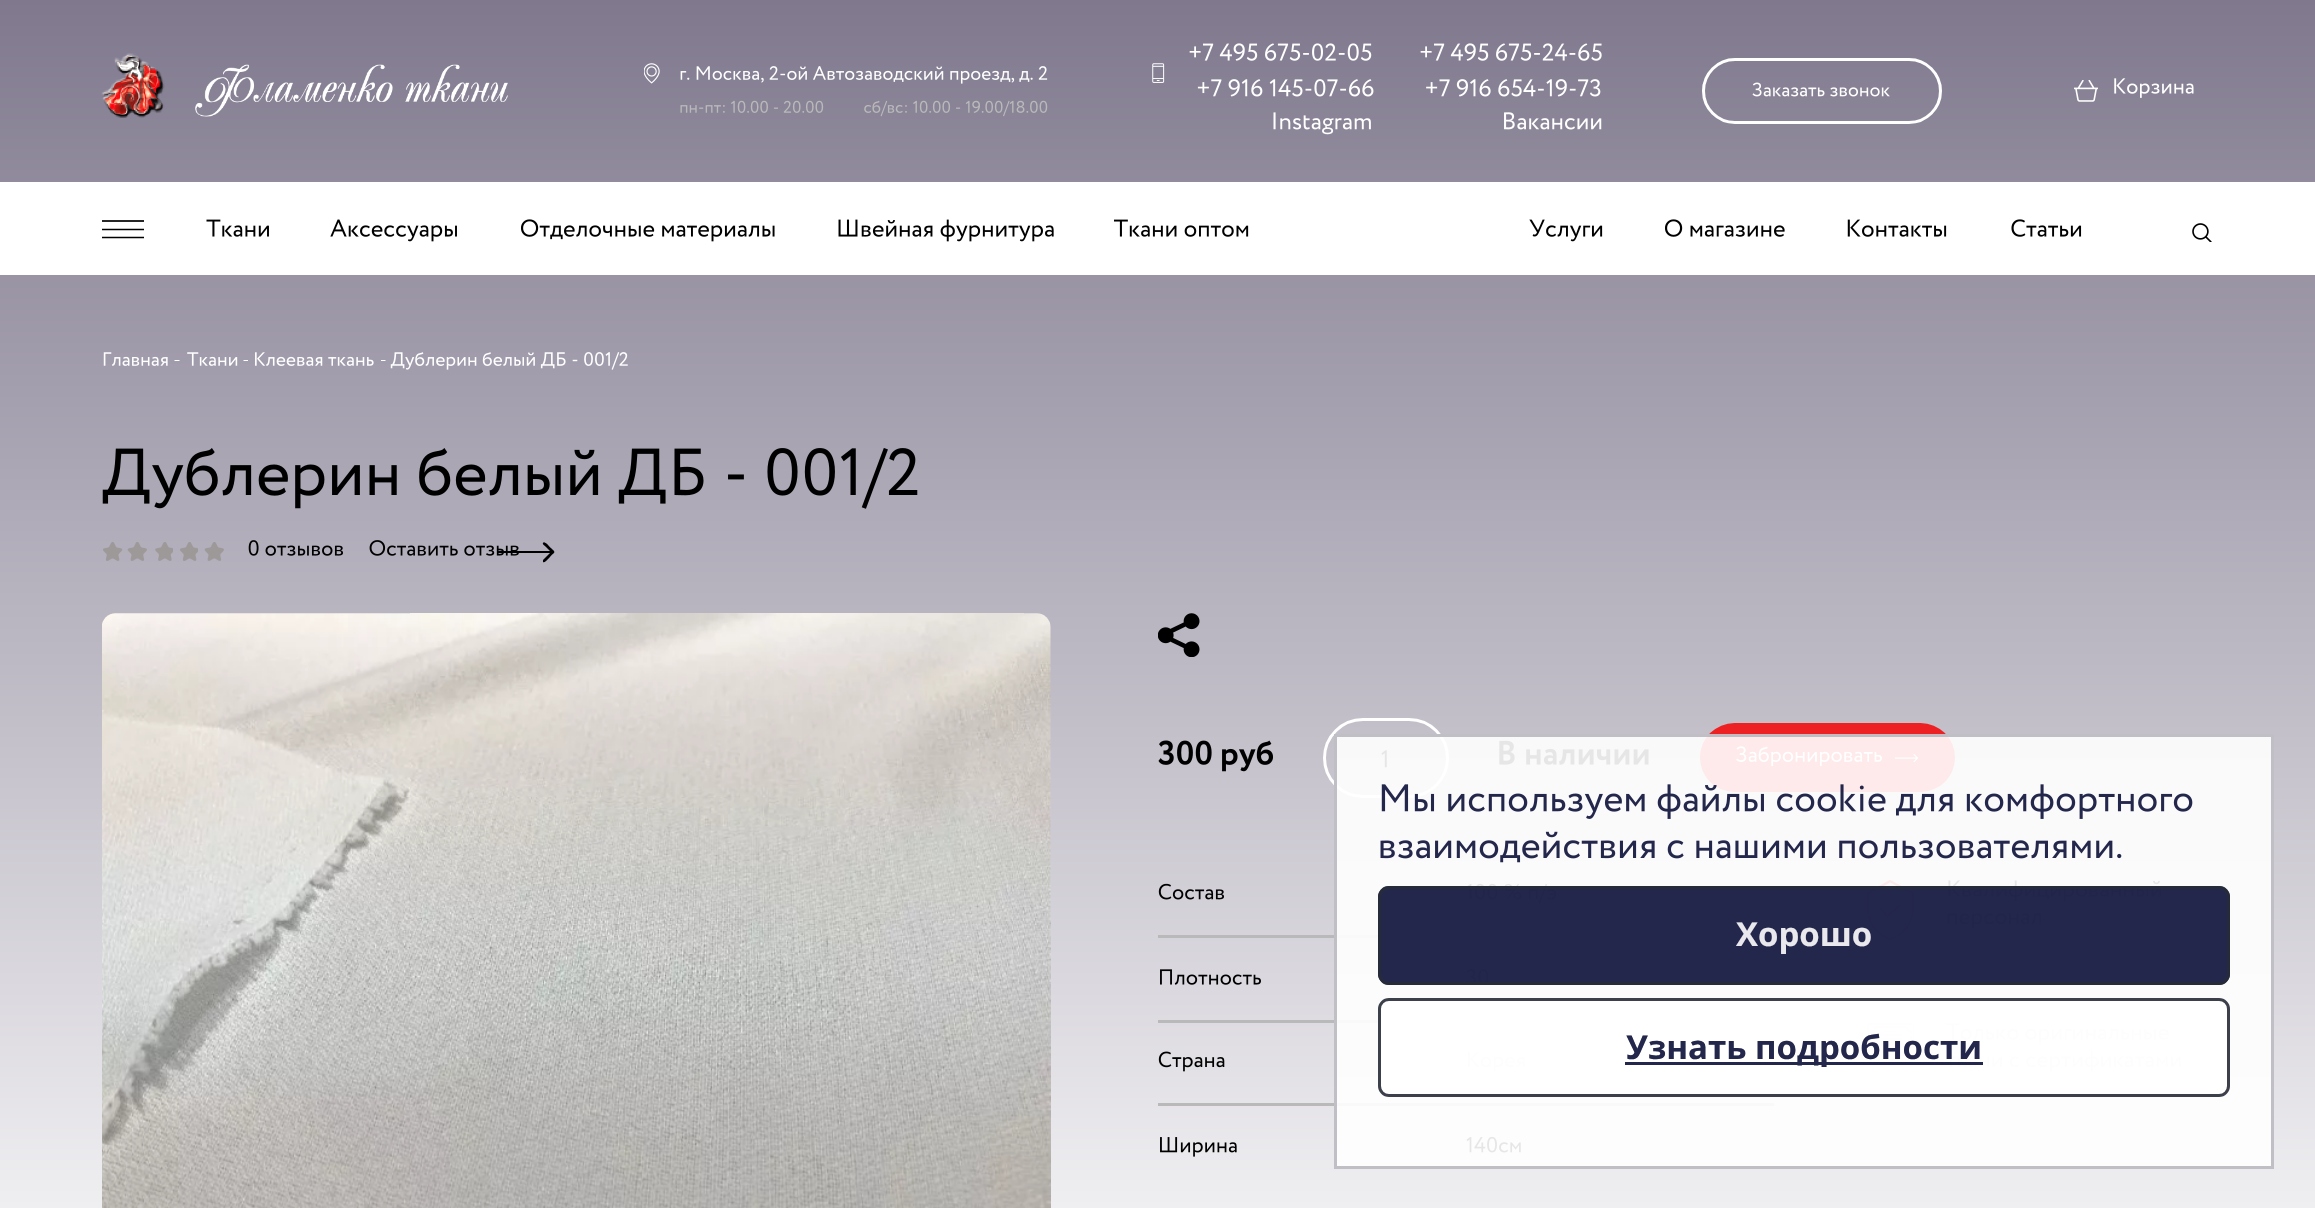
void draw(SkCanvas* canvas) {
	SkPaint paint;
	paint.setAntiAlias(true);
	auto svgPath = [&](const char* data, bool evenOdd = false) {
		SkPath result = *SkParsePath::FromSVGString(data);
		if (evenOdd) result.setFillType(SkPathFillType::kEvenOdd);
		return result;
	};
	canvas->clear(0xffffffff);
	{
		const SkColor colors[] = {0xff80798e, 0xffffffff};
		const float stops[] = {0, 0.43};
		const SkPoint ends[] = {{1158, 0}, {1158, 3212}};
		paint.setShader(SkGradientShader::MakeLinear(ends, colors, stops, 2, SkTileMode::kClamp));
		paint.setAlpha(255);
	}
	canvas->drawRect(SkRect::MakeXYWH(0, 0, 2315, 1208), paint);
	canvas->drawImageRect(SkImages::DeferredFromEncodedData(SkData::MakeFromFileName("img1.png")), SkRect::MakeXYWH(101, 53, 407, 65), SkSamplingOptions());
	canvas->drawImageRect(SkImages::DeferredFromEncodedData(SkData::MakeFromFileName("img2.png")), SkRect::MakeXYWH(644, 63, 16, 21), SkSamplingOptions());
	canvas->drawImageRect(SkImages::DeferredFromEncodedData(SkData::MakeFromFileName("img3.png")), SkRect::MakeXYWH(680, 66, 368, 18), SkSamplingOptions());
	canvas->drawImageRect(SkImages::DeferredFromEncodedData(SkData::MakeFromFileName("img4.png")), SkRect::MakeXYWH(680, 100, 144, 13), SkSamplingOptions());
	canvas->drawImageRect(SkImages::DeferredFromEncodedData(SkData::MakeFromFileName("img5.png")), SkRect::MakeXYWH(864, 100, 184, 17), SkSamplingOptions());
	canvas->drawImageRect(SkImages::DeferredFromEncodedData(SkData::MakeFromFileName("img6.png")), SkRect::MakeXYWH(1189, 43, 183, 18), SkSamplingOptions());
	canvas->drawImageRect(SkImages::DeferredFromEncodedData(SkData::MakeFromFileName("img7.png")), SkRect::MakeXYWH(1152, 63, 13, 20), SkSamplingOptions());
	canvas->drawImageRect(SkImages::DeferredFromEncodedData(SkData::MakeFromFileName("img8.png")), SkRect::MakeXYWH(1420, 43, 182, 18), SkSamplingOptions());
	canvas->drawImageRect(SkImages::DeferredFromEncodedData(SkData::MakeFromFileName("img9.png")), SkRect::MakeXYWH(1197, 79, 177, 18), SkSamplingOptions());
	canvas->drawImageRect(SkImages::DeferredFromEncodedData(SkData::MakeFromFileName("img10.png")), SkRect::MakeXYWH(1426, 79, 175, 18), SkSamplingOptions());
	canvas->drawImageRect(SkImages::DeferredFromEncodedData(SkData::MakeFromFileName("img11.png")), SkRect::MakeXYWH(1273, 112, 98, 23), SkSamplingOptions());
	canvas->drawImageRect(SkImages::DeferredFromEncodedData(SkData::MakeFromFileName("img12.png")), SkRect::MakeXYWH(1504, 112, 98, 18), SkSamplingOptions());
	paint.setStroke(true);
	paint.setStrokeWidth(3);
	paint.setShader(nullptr);
	paint.setColor(0xffffffff);
	canvas->drawRoundRect(SkRect::MakeXYWH(1703.5, 59.5, 237, 63), 31.5, 31.5, paint);
	canvas->drawImageRect(SkImages::DeferredFromEncodedData(SkData::MakeFromFileName("img13.png")), SkRect::MakeXYWH(1752, 82, 138, 15), SkSamplingOptions());
	canvas->drawImageRect(SkImages::DeferredFromEncodedData(SkData::MakeFromFileName("img14.png")), SkRect::MakeXYWH(2074, 80, 24, 22), SkSamplingOptions());
	canvas->drawImageRect(SkImages::DeferredFromEncodedData(SkData::MakeFromFileName("img15.png")), SkRect::MakeXYWH(2114, 78, 80, 20), SkSamplingOptions());
	paint.setStroke(false);
	canvas->drawRect(SkRect::MakeXYWH(0, 182, 2315, 93), paint);
	paint.setColor(0xff262626);
	canvas->drawRect(SkRect::MakeXYWH(102, 220, 42, 2), paint);
	paint.setStroke(true);
	paint.setStrokeWidth(1.7);
	paint.setColor(0xff000000);
	canvas->drawPath(svgPath("M102 229.5H144M102 237.5H144"), paint);
	canvas->drawImageRect(SkImages::DeferredFromEncodedData(SkData::MakeFromFileName("img16.png")), SkRect::MakeXYWH(206, 219, 63, 18), SkSamplingOptions());
	canvas->drawImageRect(SkImages::DeferredFromEncodedData(SkData::MakeFromFileName("img17.png")), SkRect::MakeXYWH(330, 219, 127, 23), SkSamplingOptions());
	canvas->drawImageRect(SkImages::DeferredFromEncodedData(SkData::MakeFromFileName("img18.png")), SkRect::MakeXYWH(521, 219, 254, 23), SkSamplingOptions());
	canvas->drawImageRect(SkImages::DeferredFromEncodedData(SkData::MakeFromFileName("img19.png")), SkRect::MakeXYWH(838, 219, 216, 23), SkSamplingOptions());
	canvas->drawImageRect(SkImages::DeferredFromEncodedData(SkData::MakeFromFileName("img20.png")), SkRect::MakeXYWH(1114, 219, 135, 18), SkSamplingOptions());
	canvas->drawImageRect(SkImages::DeferredFromEncodedData(SkData::MakeFromFileName("img21.png")), SkRect::MakeXYWH(1529, 219, 74, 23), SkSamplingOptions());
	canvas->drawImageRect(SkImages::DeferredFromEncodedData(SkData::MakeFromFileName("img22.png")), SkRect::MakeXYWH(1665, 219, 120, 18), SkSamplingOptions());
	canvas->drawImageRect(SkImages::DeferredFromEncodedData(SkData::MakeFromFileName("img23.png")), SkRect::MakeXYWH(1847, 219, 100, 18), SkSamplingOptions());
	canvas->drawImageRect(SkImages::DeferredFromEncodedData(SkData::MakeFromFileName("img24.png")), SkRect::MakeXYWH(2011, 219, 71, 18), SkSamplingOptions());
	canvas->drawImageRect(SkImages::DeferredFromEncodedData(SkData::MakeFromFileName("img25.png")), SkRect::MakeXYWH(2192, 223, 20, 19), SkSamplingOptions());
	canvas->drawImageRect(SkImages::DeferredFromEncodedData(SkData::MakeFromFileName("img26.png")), SkRect::MakeXYWH(103, 352, 65, 14), SkSamplingOptions());
	paint.setStroke(false);
	paint.setColor(0xffffffff);
	canvas->drawPath(svgPath("M174.5 361V360H179.5V361Z"), paint);
	canvas->drawImageRect(SkImages::DeferredFromEncodedData(SkData::MakeFromFileName("img27.png")), SkRect::MakeXYWH(187, 352, 51, 14), SkSamplingOptions());
	canvas->drawPath(svgPath("M243.5 361V360H248V361Z"), paint);
	canvas->drawImageRect(SkImages::DeferredFromEncodedData(SkData::MakeFromFileName("img28.png")), SkRect::MakeXYWH(255, 352, 119, 14), SkSamplingOptions());
	canvas->drawPath(svgPath("M381 361V360H385.5V361Z"), paint);
	canvas->drawImageRect(SkImages::DeferredFromEncodedData(SkData::MakeFromFileName("img29.png")), SkRect::MakeXYWH(390, 352, 238, 18), SkSamplingOptions());
	canvas->drawImageRect(SkImages::DeferredFromEncodedData(SkData::MakeFromFileName("img30.png")), SkRect::MakeXYWH(102, 448, 816, 61), SkSamplingOptions());
	canvas->drawImageRect(SkImages::DeferredFromEncodedData(SkData::MakeFromFileName("img31.png")), SkRect::MakeXYWH(103, 542, 20, 19), SkSamplingOptions());
	canvas->drawImageRect(SkImages::DeferredFromEncodedData(SkData::MakeFromFileName("img32.png")), SkRect::MakeXYWH(127, 542, 20, 19), SkSamplingOptions());
	canvas->drawImageRect(SkImages::DeferredFromEncodedData(SkData::MakeFromFileName("img33.png")), SkRect::MakeXYWH(155, 542, 18, 19), SkSamplingOptions());
	canvas->drawImageRect(SkImages::DeferredFromEncodedData(SkData::MakeFromFileName("img34.png")), SkRect::MakeXYWH(180, 542, 18, 19), SkSamplingOptions());
	canvas->drawImageRect(SkImages::DeferredFromEncodedData(SkData::MakeFromFileName("img32.png")), SkRect::MakeXYWH(204, 542, 20, 19), SkSamplingOptions());
	canvas->drawImageRect(SkImages::DeferredFromEncodedData(SkData::MakeFromFileName("img35.png")), SkRect::MakeXYWH(248, 540, 95, 16), SkSamplingOptions());
	paint.setColor(0xff000000);
	canvas->drawPath(svgPath("M554 553C556 551 550 548 550 547C549 546 544 540 543 543C542 544 545 546 546 547L551 552L543 560V562C545 564 552 554 554 553ZM498 553H553V551H498Z"), paint);
	canvas->drawImageRect(SkImages::DeferredFromEncodedData(SkData::MakeFromFileName("img36.png")), SkRect::MakeXYWH(369, 540, 150, 16), SkSamplingOptions());
	canvas->drawImageRect(SkImages::DeferredFromEncodedData(SkData::MakeFromFileName("img37.png")), SkRect::MakeXYWH(102, 613, 949, 595), SkSamplingOptions());
	canvas->drawImageRect(SkImages::DeferredFromEncodedData(SkData::MakeFromFileName("img38.png")), SkRect::MakeXYWH(1158, 613, 42, 44), SkSamplingOptions());
	canvas->drawImageRect(SkImages::DeferredFromEncodedData(SkData::MakeFromFileName("img39.png")), SkRect::MakeXYWH(1158, 740, 54, 25), SkSamplingOptions());
	canvas->drawImageRect(SkImages::DeferredFromEncodedData(SkData::MakeFromFileName("img40.png")), SkRect::MakeXYWH(1222, 740, 51, 32), SkSamplingOptions());
	paint.setStroke(true);
	paint.setStrokeWidth(3);
	paint.setColor(0xffffffff);
	canvas->drawRoundRect(SkRect::MakeXYWH(1324.5, 719.5, 123, 77), 38.5, 38.5, paint);
	canvas->drawImageRect(SkImages::DeferredFromEncodedData(SkData::MakeFromFileName("img41.png")), SkRect::MakeXYWH(1381, 750, 6, 18), SkSamplingOptions());
	canvas->drawImageRect(SkImages::DeferredFromEncodedData(SkData::MakeFromFileName("img42.png")), SkRect::MakeXYWH(1499, 740, 150, 25), SkSamplingOptions());
	paint.setStroke(false);
	paint.setColor(0xffed2024);
	canvas->drawRoundRect(SkRect::MakeXYWH(1700, 723, 255, 69), 34.5, 34.5, paint);
	canvas->drawImageRect(SkImages::DeferredFromEncodedData(SkData::MakeFromFileName("img43.png")), SkRect::MakeXYWH(1736, 746, 146, 21), SkSamplingOptions());
	canvas->drawImageRect(SkImages::DeferredFromEncodedData(SkData::MakeFromFileName("img44.png")), SkRect::MakeXYWH(1895, 754, 24, 8), SkSamplingOptions());
	paint.setColor(0xffb9b9b9);
	canvas->drawRect(SkRect::MakeXYWH(1158, 935, 616, 3), paint);
	canvas->drawImageRect(SkImages::DeferredFromEncodedData(SkData::MakeFromFileName("img45.png")), SkRect::MakeXYWH(1466, 883, 91, 21), SkSamplingOptions());
	canvas->drawImageRect(SkImages::DeferredFromEncodedData(SkData::MakeFromFileName("img46.png")), SkRect::MakeXYWH(1158, 883, 66, 17), SkSamplingOptions());
	canvas->drawRect(SkRect::MakeXYWH(1158, 1020, 616, 3), paint);
	canvas->drawImageRect(SkImages::DeferredFromEncodedData(SkData::MakeFromFileName("img47.png")), SkRect::MakeXYWH(1466, 969, 23, 16), SkSamplingOptions());
	canvas->drawImageRect(SkImages::DeferredFromEncodedData(SkData::MakeFromFileName("img48.png")), SkRect::MakeXYWH(1160, 969, 101, 16), SkSamplingOptions());
	canvas->drawRect(SkRect::MakeXYWH(1158, 1103, 616, 3), paint);
	canvas->drawImageRect(SkImages::DeferredFromEncodedData(SkData::MakeFromFileName("img49.png")), SkRect::MakeXYWH(1468, 1051, 57, 21), SkSamplingOptions());
	canvas->drawImageRect(SkImages::DeferredFromEncodedData(SkData::MakeFromFileName("img50.png")), SkRect::MakeXYWH(1158, 1051, 67, 21), SkSamplingOptions());
	canvas->drawImageRect(SkImages::DeferredFromEncodedData(SkData::MakeFromFileName("img51.png")), SkRect::MakeXYWH(1160, 1137, 77, 20), SkSamplingOptions());
	canvas->drawImageRect(SkImages::DeferredFromEncodedData(SkData::MakeFromFileName("img52.png")), SkRect::MakeXYWH(1466, 1136, 55, 17), SkSamplingOptions());
	canvas->drawImageRect(SkImages::DeferredFromEncodedData(SkData::MakeFromFileName("img53.png")), SkRect::MakeXYWH(1867, 880, 47, 61), SkSamplingOptions());
	canvas->drawImageRect(SkImages::DeferredFromEncodedData(SkData::MakeFromFileName("img54.png")), SkRect::MakeXYWH(1948, 880, 214, 22), SkSamplingOptions());
	canvas->drawImageRect(SkImages::DeferredFromEncodedData(SkData::MakeFromFileName("img55.png")), SkRect::MakeXYWH(1947, 913, 95, 16), SkSamplingOptions());
	canvas->drawImageRect(SkImages::DeferredFromEncodedData(SkData::MakeFromFileName("img56.png")), SkRect::MakeXYWH(1867, 1023, 47, 44), SkSamplingOptions());
	canvas->drawImageRect(SkImages::DeferredFromEncodedData(SkData::MakeFromFileName("img57.png")), SkRect::MakeXYWH(1946, 1023, 223, 22), SkSamplingOptions());
	canvas->drawImageRect(SkImages::DeferredFromEncodedData(SkData::MakeFromFileName("img58.png")), SkRect::MakeXYWH(1946, 1050, 235, 22), SkSamplingOptions());
	paint.setColor(0xe6ffffff);
	canvas->drawRect(SkRect::MakeXYWH(1334, 734, 940, 435), paint);
	paint.setStroke(true);
	paint.setColor(0xe6b8b8bf);
	canvas->drawRect(SkRect::MakeXYWH(1335.5, 735.5, 937, 432), paint);
	canvas->drawImageRect(SkImages::DeferredFromEncodedData(SkData::MakeFromFileName("img59.png")), SkRect::MakeXYWH(1381, 784, 812, 35), SkSamplingOptions());
	canvas->drawImageRect(SkImages::DeferredFromEncodedData(SkData::MakeFromFileName("img60.png")), SkRect::MakeXYWH(1380, 831, 742, 32), SkSamplingOptions());
	paint.setStroke(false);
	paint.setColor(0xe60c0f38);
	canvas->drawRoundRect(SkRect::MakeXYWH(1378, 886, 852, 99), 11, 11, paint);
	paint.setStroke(true);
	paint.setColor(0xe6262b36);
	canvas->drawRoundRect(SkRect::MakeXYWH(1379.5, 887.5, 849, 96), 9.5, 9.5, paint);
	SkFont f1(fontMgr->matchFamilyStyle("Open Sans", SkFontStyle::Bold()), 33);
	f1.setSubpixel(true);
	paint.setStroke(false);
	paint.setColor(0xffe9e9ed);
	canvas->drawString("Хорошо", 1736, 946, f1, paint);
	paint.setColor(0xe6ffffff);
	canvas->drawRoundRect(SkRect::MakeXYWH(1379.5, 999.5, 849, 96), 9.5, 9.5, paint);
	paint.setStroke(true);
	paint.setColor(0xff3c404a);
	canvas->drawRoundRect(SkRect::MakeXYWH(1379.5, 999.5, 849, 96), 9.5, 9.5, paint);
	paint.setStroke(false);
	paint.setColor(0xff24274c);
	canvas->drawRect(SkRect::MakeXYWH(1625, 1062, 358, 3), paint);
	canvas->drawString("Узнать подробности", 1626, 1059, f1, paint);
}
